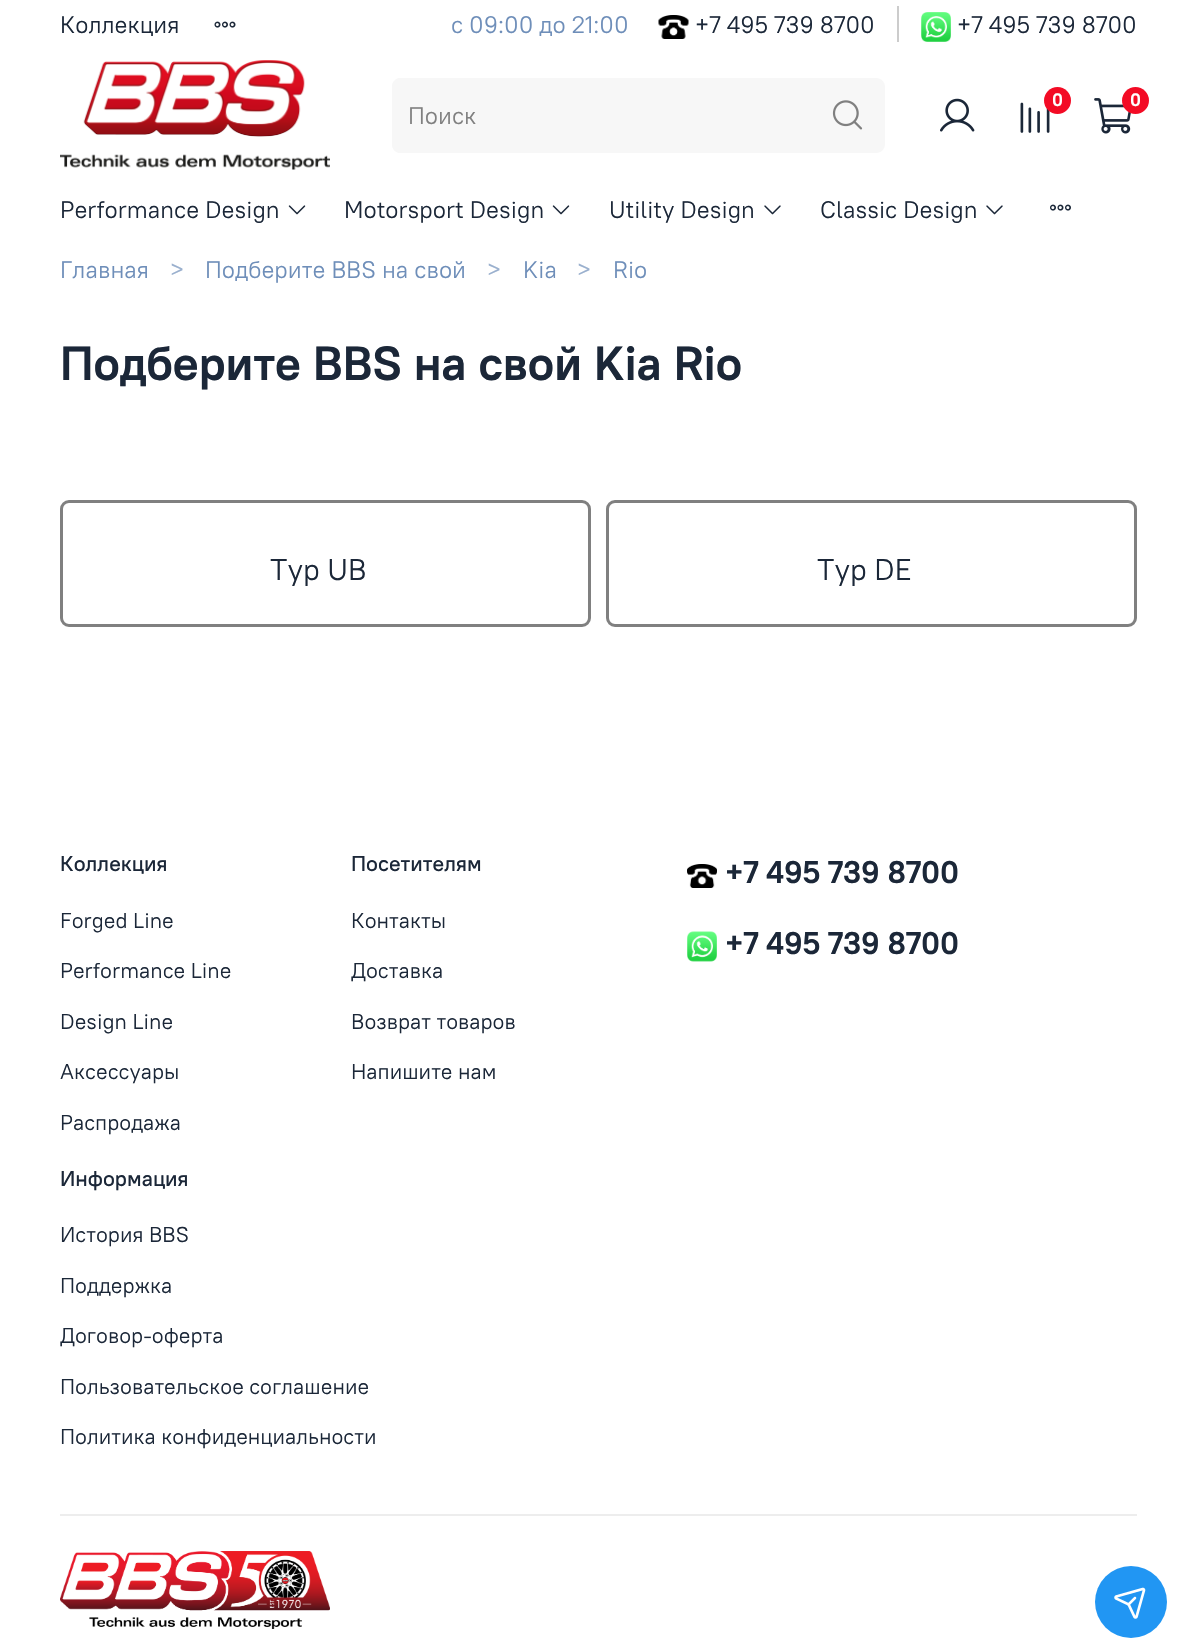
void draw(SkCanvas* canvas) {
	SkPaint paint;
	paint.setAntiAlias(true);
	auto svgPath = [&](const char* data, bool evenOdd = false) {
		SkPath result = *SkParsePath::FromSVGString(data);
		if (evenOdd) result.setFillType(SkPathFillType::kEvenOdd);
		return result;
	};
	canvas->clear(0xffffffff);
	SkFont f1(fontMgr->matchFamilyStyle("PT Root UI", SkFontStyle::Normal()), 24);
	f1.setSubpixel(true);
	paint.setColor(0xff1b2738);
	canvas->drawString("Коллекция", 60, 33, f1, paint);
	canvas->drawImageRect(SkImages::DeferredFromEncodedData(SkData::MakeFromFileName("img1.png")), SkRect::MakeXYWH(214, 21, 22, 7), SkSamplingOptions());
	paint.setColor(0xff6e8eb9);
	canvas->drawString("с 09:00 до 21:00", 451, 33, f1, paint);
	paint.setColor(0xffcccccc);
	canvas->drawRect(SkRect::MakeXYWH(897, 6, 2, 36), paint);
	canvas->drawImageRect(SkImages::DeferredFromEncodedData(SkData::MakeFromFileName("img2.png")), SkRect::MakeXYWH(658, 15, 31, 24), SkSamplingOptions());
	paint.setColor(0xff1b2738);
	canvas->drawString("+7 495 739 8700", 695, 33, f1, paint);
	canvas->drawImageRect(SkImages::DeferredFromEncodedData(SkData::MakeFromFileName("img3.png")), SkRect::MakeXYWH(921, 12, 30, 30), SkSamplingOptions());
	canvas->drawString("+7 495 739 8700", 957, 33, f1, paint);
	canvas->drawImageRect(SkImages::DeferredFromEncodedData(SkData::MakeFromFileName("img4.png")), SkRect::MakeXYWH(60, 60, 270, 110), SkSamplingOptions());
	canvas->drawImageRect(SkImages::DeferredFromEncodedData(SkData::MakeFromFileName("img5.png")), SkRect::MakeXYWH(940, 98, 35, 34), SkSamplingOptions());
	canvas->drawImageRect(SkImages::DeferredFromEncodedData(SkData::MakeFromFileName("img6.png")), SkRect::MakeXYWH(1020, 102, 30, 31), SkSamplingOptions());
	paint.setColor(0xfff30b25);
	canvas->drawCircle(1057.5, 100.5, 13.5, paint);
	SkFont f2(fontMgr->matchFamilyStyle("PT Root UI", SkFontStyle::Bold()), 18);
	f2.setSubpixel(true);
	paint.setColor(0xffffffff);
	canvas->drawString("0", 1052, 106, f2, paint);
	canvas->drawImageRect(SkImages::DeferredFromEncodedData(SkData::MakeFromFileName("img7.png")), SkRect::MakeXYWH(1094, 98, 37, 36), SkSamplingOptions());
	paint.setColor(0xfff30b25);
	canvas->drawCircle(1135.5, 100.5, 13.5, paint);
	paint.setColor(0xffffffff);
	canvas->drawString("0", 1130, 106, f2, paint);
	paint.setColor(0xfff7f7f7);
	canvas->drawPath(svgPath("M401 78H810V153H401C396 153 392 149 392 144V87C392 82 396 78 401 78Z"), paint);
	canvas->drawPath(svgPath("M400 78H810V153H400C396 153 392 149 392 144V87C392 82 396 78 400 78ZM400 80H810V152H400C396 152 393 148 393 144V87C393 83 396 80 400 80Z", true), paint);
	paint.setColor(0xff808080);
	canvas->drawString("Поиск", 408, 124, f1, paint);
	paint.setColor(0xfff7f7f7);
	canvas->drawPath(svgPath("M810 78H876C881 78 885 82 885 87V144C885 149 881 153 876 153H810Z"), paint);
	canvas->drawImageRect(SkImages::DeferredFromEncodedData(SkData::MakeFromFileName("img8.png")), SkRect::MakeXYWH(832, 100, 31, 30), SkSamplingOptions());
	paint.setColor(0xff1b2738);
	canvas->drawString("Performance Design", 60, 218, f1, paint);
	canvas->drawImageRect(SkImages::DeferredFromEncodedData(SkData::MakeFromFileName("img9.png")), SkRect::MakeXYWH(288, 205, 18, 10), SkSamplingOptions());
	canvas->drawString("Motorsport Design", 344, 218, f1, paint);
	canvas->drawImageRect(SkImages::DeferredFromEncodedData(SkData::MakeFromFileName("img9.png")), SkRect::MakeXYWH(552, 205, 18, 10), SkSamplingOptions());
	canvas->drawString("Utility Design", 609, 218, f1, paint);
	canvas->drawImageRect(SkImages::DeferredFromEncodedData(SkData::MakeFromFileName("img10.png")), SkRect::MakeXYWH(764, 205, 17, 10), SkSamplingOptions());
	canvas->drawString("Classic Design", 820, 218, f1, paint);
	canvas->drawImageRect(SkImages::DeferredFromEncodedData(SkData::MakeFromFileName("img10.png")), SkRect::MakeXYWH(986, 205, 17, 10), SkSamplingOptions());
	canvas->drawImageRect(SkImages::DeferredFromEncodedData(SkData::MakeFromFileName("img11.png")), SkRect::MakeXYWH(1050, 204, 21, 7), SkSamplingOptions());
	paint.setColor(0xff6e8eb9);
	canvas->drawString("Главная", 60, 278, f1, paint);
	paint.setColor(0xff9ab0ce);
	canvas->drawString(">", 170, 278, f1, paint);
	paint.setColor(0xff6e8eb9);
	canvas->drawString("Подберите BBS на свой", 205, 278, f1, paint);
	paint.setColor(0xff9ab0ce);
	canvas->drawString(">", 487, 278, f1, paint);
	paint.setColor(0xff6e8eb9);
	canvas->drawString("Kia", 523, 278, f1, paint);
	paint.setColor(0xff9ab0ce);
	canvas->drawString(">", 577, 278, f1, paint);
	paint.setColor(0xff6e8eb9);
	canvas->drawString("Rio", 613, 278, f1, paint);
	SkFont f3(fontMgr->matchFamilyStyle("PT Root UI", SkFontStyle::Bold()), 48);
	f3.setSubpixel(true);
	paint.setColor(0xff1b2738);
	canvas->drawString("Подберите BBS на свой Kia Rio", 60, 380, f3, paint);
	paint.setStroke(true);
	paint.setStrokeWidth(3);
	paint.setColor(0xff808080);
	canvas->drawRoundRect(SkRect::MakeXYWH(61.5, 501.5, 528, 124), 7.5, 7.5, paint);
	SkFont f4(fontMgr->matchFamilyStyle("PT Root UI", SkFontStyle::Normal()), 30);
	f4.setSubpixel(true);
	paint.setStroke(false);
	paint.setColor(0xff1b2738);
	canvas->drawString("Typ UB", 270, 580, f4, paint);
	paint.setStroke(true);
	paint.setColor(0xff808080);
	canvas->drawRoundRect(SkRect::MakeXYWH(607.5, 501.5, 528, 124), 7.5, 7.5, paint);
	paint.setStroke(false);
	paint.setColor(0xff1b2738);
	canvas->drawString("Typ DE", 817, 580, f4, paint);
	SkFont f5(fontMgr->matchFamilyStyle("PT Root UI", SkFontStyle(500, SkFontStyle::kNormal_Width, SkFontStyle::kUpright_Slant)), 21.6);
	f5.setSubpixel(true);
	canvas->drawString("Коллекция", 60, 871, f5, paint);
	SkFont f6(fontMgr->matchFamilyStyle("PT Root UI", SkFontStyle::Normal()), 21.6);
	f6.setSubpixel(true);
	canvas->drawString("Forged Line", 60, 928, f6, paint);
	canvas->drawString("Performance Line", 60, 978, f6, paint);
	canvas->drawString("Design Line", 60, 1029, f6, paint);
	canvas->drawString("Аксессуары", 60, 1079, f6, paint);
	canvas->drawString("Распродажа", 60, 1130, f6, paint);
	canvas->drawString("Посетителям", 351, 871, f5, paint);
	canvas->drawString("Контакты", 351, 928, f6, paint);
	canvas->drawString("Доставка", 351, 978, f6, paint);
	canvas->drawString("Возврат товаров", 351, 1029, f6, paint);
	canvas->drawString("Напишите нам", 351, 1079, f6, paint);
	canvas->drawString("Информация", 60, 1186, f5, paint);
	canvas->drawString("История BBS", 60, 1242, f6, paint);
	canvas->drawString("Поддержка", 60, 1293, f6, paint);
	canvas->drawString("Договор-оферта", 60, 1343, f6, paint);
	canvas->drawString("Пользовательское соглашение", 60, 1394, f6, paint);
	canvas->drawString("Политика конфиденциальности", 60, 1444, f6, paint);
	canvas->drawImageRect(SkImages::DeferredFromEncodedData(SkData::MakeFromFileName("img12.png")), SkRect::MakeXYWH(687, 864, 30, 24), SkSamplingOptions());
	SkFont f7(fontMgr->matchFamilyStyle("PT Root UI", SkFontStyle::Bold()), 31.25);
	f7.setSubpixel(true);
	canvas->drawString("+7 495 739 8700", 725, 883, f7, paint);
	canvas->drawImageRect(SkImages::DeferredFromEncodedData(SkData::MakeFromFileName("img13.png")), SkRect::MakeXYWH(687, 931, 30, 31), SkSamplingOptions());
	canvas->drawString("+7 495 739 8700", 725, 954, f7, paint);
	paint.setColor(0xffededed);
	canvas->drawRect(SkRect::MakeXYWH(60, 1514, 1077, 2), paint);
	canvas->drawImageRect(SkImages::DeferredFromEncodedData(SkData::MakeFromFileName("img14.png")), SkRect::MakeXYWH(60, 1551, 270, 78), SkSamplingOptions());
	paint.setColor(0xff2196f3);
	canvas->drawCircle(1131, 1602, 36, paint);
	canvas->drawImageRect(SkImages::DeferredFromEncodedData(SkData::MakeFromFileName("img15.png")), SkRect::MakeXYWH(1114, 1587, 32, 32), SkSamplingOptions());
}
